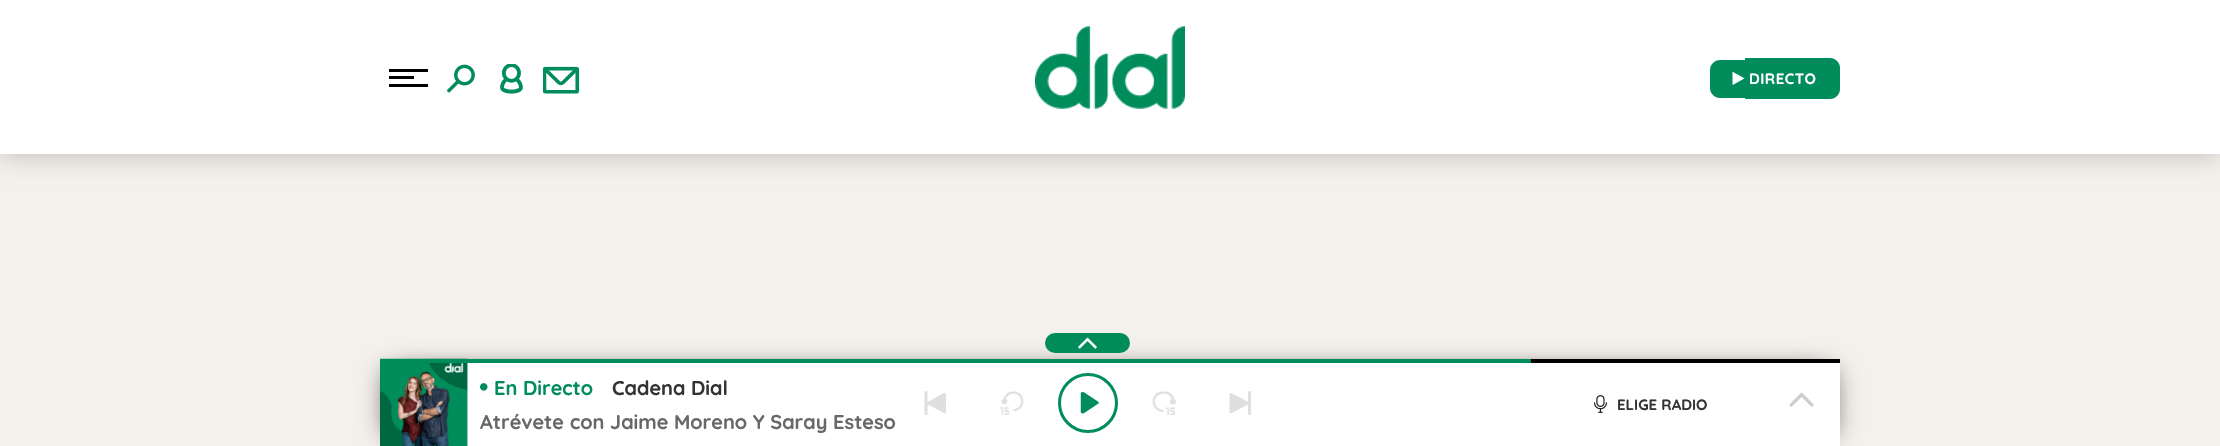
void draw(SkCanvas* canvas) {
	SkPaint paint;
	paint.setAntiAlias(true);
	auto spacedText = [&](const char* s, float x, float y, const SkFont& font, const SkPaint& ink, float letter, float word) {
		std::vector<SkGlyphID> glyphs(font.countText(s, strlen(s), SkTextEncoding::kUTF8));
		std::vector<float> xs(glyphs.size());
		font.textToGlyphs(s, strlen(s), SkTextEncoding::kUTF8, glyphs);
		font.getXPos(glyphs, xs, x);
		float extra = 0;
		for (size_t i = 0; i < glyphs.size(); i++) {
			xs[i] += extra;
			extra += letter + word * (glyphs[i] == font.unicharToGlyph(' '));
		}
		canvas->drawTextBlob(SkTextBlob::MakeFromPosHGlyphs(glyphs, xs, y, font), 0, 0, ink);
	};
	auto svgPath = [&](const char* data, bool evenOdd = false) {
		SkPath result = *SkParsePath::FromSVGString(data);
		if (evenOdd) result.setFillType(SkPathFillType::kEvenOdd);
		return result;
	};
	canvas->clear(0xfff4f0eb);
	paint.setColor(0xffb9b9b9);
	paint.setMaskFilter(SkMaskFilter::MakeBlur(kNormal_SkBlurStyle, 12.5));
	canvas->drawRect(SkRect::MakeXYWH(0, 0, 2220, 154), paint);
	paint.setMaskFilter(nullptr);
	paint.setColor(0xffffffff);
	canvas->drawRect(SkRect::MakeXYWH(0, 0, 2220, 154), paint);
	paint.setColor(0xff000000);
	canvas->drawRect(SkRect::MakeXYWH(389, 76, 25, 3), paint);
	canvas->drawRect(SkRect::MakeXYWH(389, 69, 39, 3), paint);
	canvas->drawRect(SkRect::MakeXYWH(389, 84, 39, 3), paint);
	canvas->drawImageRect(SkImages::DeferredFromEncodedData(SkData::MakeFromFileName("img1.png")), SkRect::MakeXYWH(447, 64, 28, 29), SkSamplingOptions());
	canvas->drawImageRect(SkImages::DeferredFromEncodedData(SkData::MakeFromFileName("img2.png")), SkRect::MakeXYWH(500, 64, 23, 30), SkSamplingOptions());
	canvas->drawImageRect(SkImages::DeferredFromEncodedData(SkData::MakeFromFileName("img3.png")), SkRect::MakeXYWH(543, 66, 37, 28), SkSamplingOptions());
	canvas->drawImageRect(SkImages::DeferredFromEncodedData(SkData::MakeFromFileName("img4.png")), SkRect::MakeXYWH(1035, 26, 150, 83), SkSamplingOptions());
	paint.setColor(0xff008c5b);
	canvas->drawPath(svgPath("M1720 60H1745V98H1720C1714.5 98 1710 93.5 1710 88V70C1710 64.5 1714.5 60 1720 60Z"), paint);
	canvas->drawPath(svgPath("M1745 58H1830C1835.5 58 1840 62.5 1840 68V89C1840 94.5 1835.5 99 1830 99H1745Z"), paint);
	canvas->drawImageRect(SkImages::DeferredFromEncodedData(SkData::MakeFromFileName("img5.png")), SkRect::MakeXYWH(1732, 71, 13, 14), SkSamplingOptions());
	SkFont f1(fontMgr->matchFamilyStyle("Quicksand", SkFontStyle(300, SkFontStyle::kNormal_Width, SkFontStyle::kUpright_Slant)), 15);
	f1.setSubpixel(true);
	paint.setColor(0xffffffff);
	spacedText("DIRECTO", 1749, 84, f1, paint, 0.5, 0);
	paint.setColor(0x80000000);
	paint.setMaskFilter(SkMaskFilter::MakeBlur(kNormal_SkBlurStyle, 12.5));
	canvas->drawRect(SkRect::MakeXYWH(401, 371, 1435, 63), paint);
	paint.setMaskFilter(nullptr);
	paint.setMaskFilter(SkMaskFilter::MakeBlur(kNormal_SkBlurStyle, 12.5));
	canvas->drawRect(SkRect::MakeXYWH(384, 371, 1435, 63), paint);
	paint.setMaskFilter(nullptr);
	paint.setColor(0xffffffff);
	canvas->drawRect(SkRect::MakeXYWH(467, 363, 1373, 83), paint);
	paint.setColor(0xff000000);
	canvas->drawRect(SkRect::MakeXYWH(1531, 359, 309, 4), paint);
	canvas->drawImageRect(SkImages::DeferredFromEncodedData(SkData::MakeFromFileName("img7.png")), SkRect::MakeXYWH(380, 358, 88, 88), SkSamplingOptions());
	paint.setColor(0xff008c5b);
	canvas->drawRect(SkRect::MakeXYWH(427, 359, 1104, 4), paint);
	canvas->drawRoundRect(SkRect::MakeXYWH(1045, 333, 85, 20), 10, 10, paint);
	canvas->drawImageRect(SkImages::DeferredFromEncodedData(SkData::MakeFromFileName("img6.png")), SkRect::MakeXYWH(1078, 337, 19, 12), SkSamplingOptions());
	canvas->drawImageRect(SkImages::DeferredFromEncodedData(SkData::MakeFromFileName("img8.png")), SkRect::MakeXYWH(480, 383, 8, 8), SkSamplingOptions());
	SkFont f2(fontMgr->matchFamilyStyle("Quicksand", SkFontStyle(300, SkFontStyle::kNormal_Width, SkFontStyle::kUpright_Slant)), 20);
	f2.setSubpixel(true);
	canvas->drawString("En Directo", 494, 395, f2, paint);
	paint.setColor(0xff333333);
	canvas->drawString("Cadena Dial", 612, 395, f2, paint);
	paint.setColor(0xff686868);
	canvas->drawString("Atrévete", 480, 429, f2, paint);
	canvas->drawString("con Jaime Moreno Y Saray Esteso", 570, 429, f2, paint);
	canvas->drawImageRect(SkImages::DeferredFromEncodedData(SkData::MakeFromFileName("img9.png")), SkRect::MakeXYWH(924, 391, 22, 24), SkSamplingOptions());
	canvas->drawImageRect(SkImages::DeferredFromEncodedData(SkData::MakeFromFileName("img10.png")), SkRect::MakeXYWH(999, 391, 25, 24), SkSamplingOptions());
	paint.setStroke(true);
	paint.setStrokeWidth(3);
	paint.setColor(0xff008c5b);
	canvas->drawCircle(1088, 403, 28.5, paint);
	canvas->drawImageRect(SkImages::DeferredFromEncodedData(SkData::MakeFromFileName("img11.png")), SkRect::MakeXYWH(1080, 392, 19, 22), SkSamplingOptions());
	canvas->drawImageRect(SkImages::DeferredFromEncodedData(SkData::MakeFromFileName("img12.png")), SkRect::MakeXYWH(1152, 391, 24, 24), SkSamplingOptions());
	canvas->drawImageRect(SkImages::DeferredFromEncodedData(SkData::MakeFromFileName("img13.png")), SkRect::MakeXYWH(1229, 391, 22, 24), SkSamplingOptions());
	canvas->drawImageRect(SkImages::DeferredFromEncodedData(SkData::MakeFromFileName("img14.png")), SkRect::MakeXYWH(1594, 395, 13, 18), SkSamplingOptions());
	paint.setStroke(false);
	paint.setColor(0xff333333);
	canvas->drawString("ELIGE RADIO", 1617, 410, f1, paint);
	canvas->drawImageRect(SkImages::DeferredFromEncodedData(SkData::MakeFromFileName("img15.png")), SkRect::MakeXYWH(1789, 392, 25, 15), SkSamplingOptions());
}
